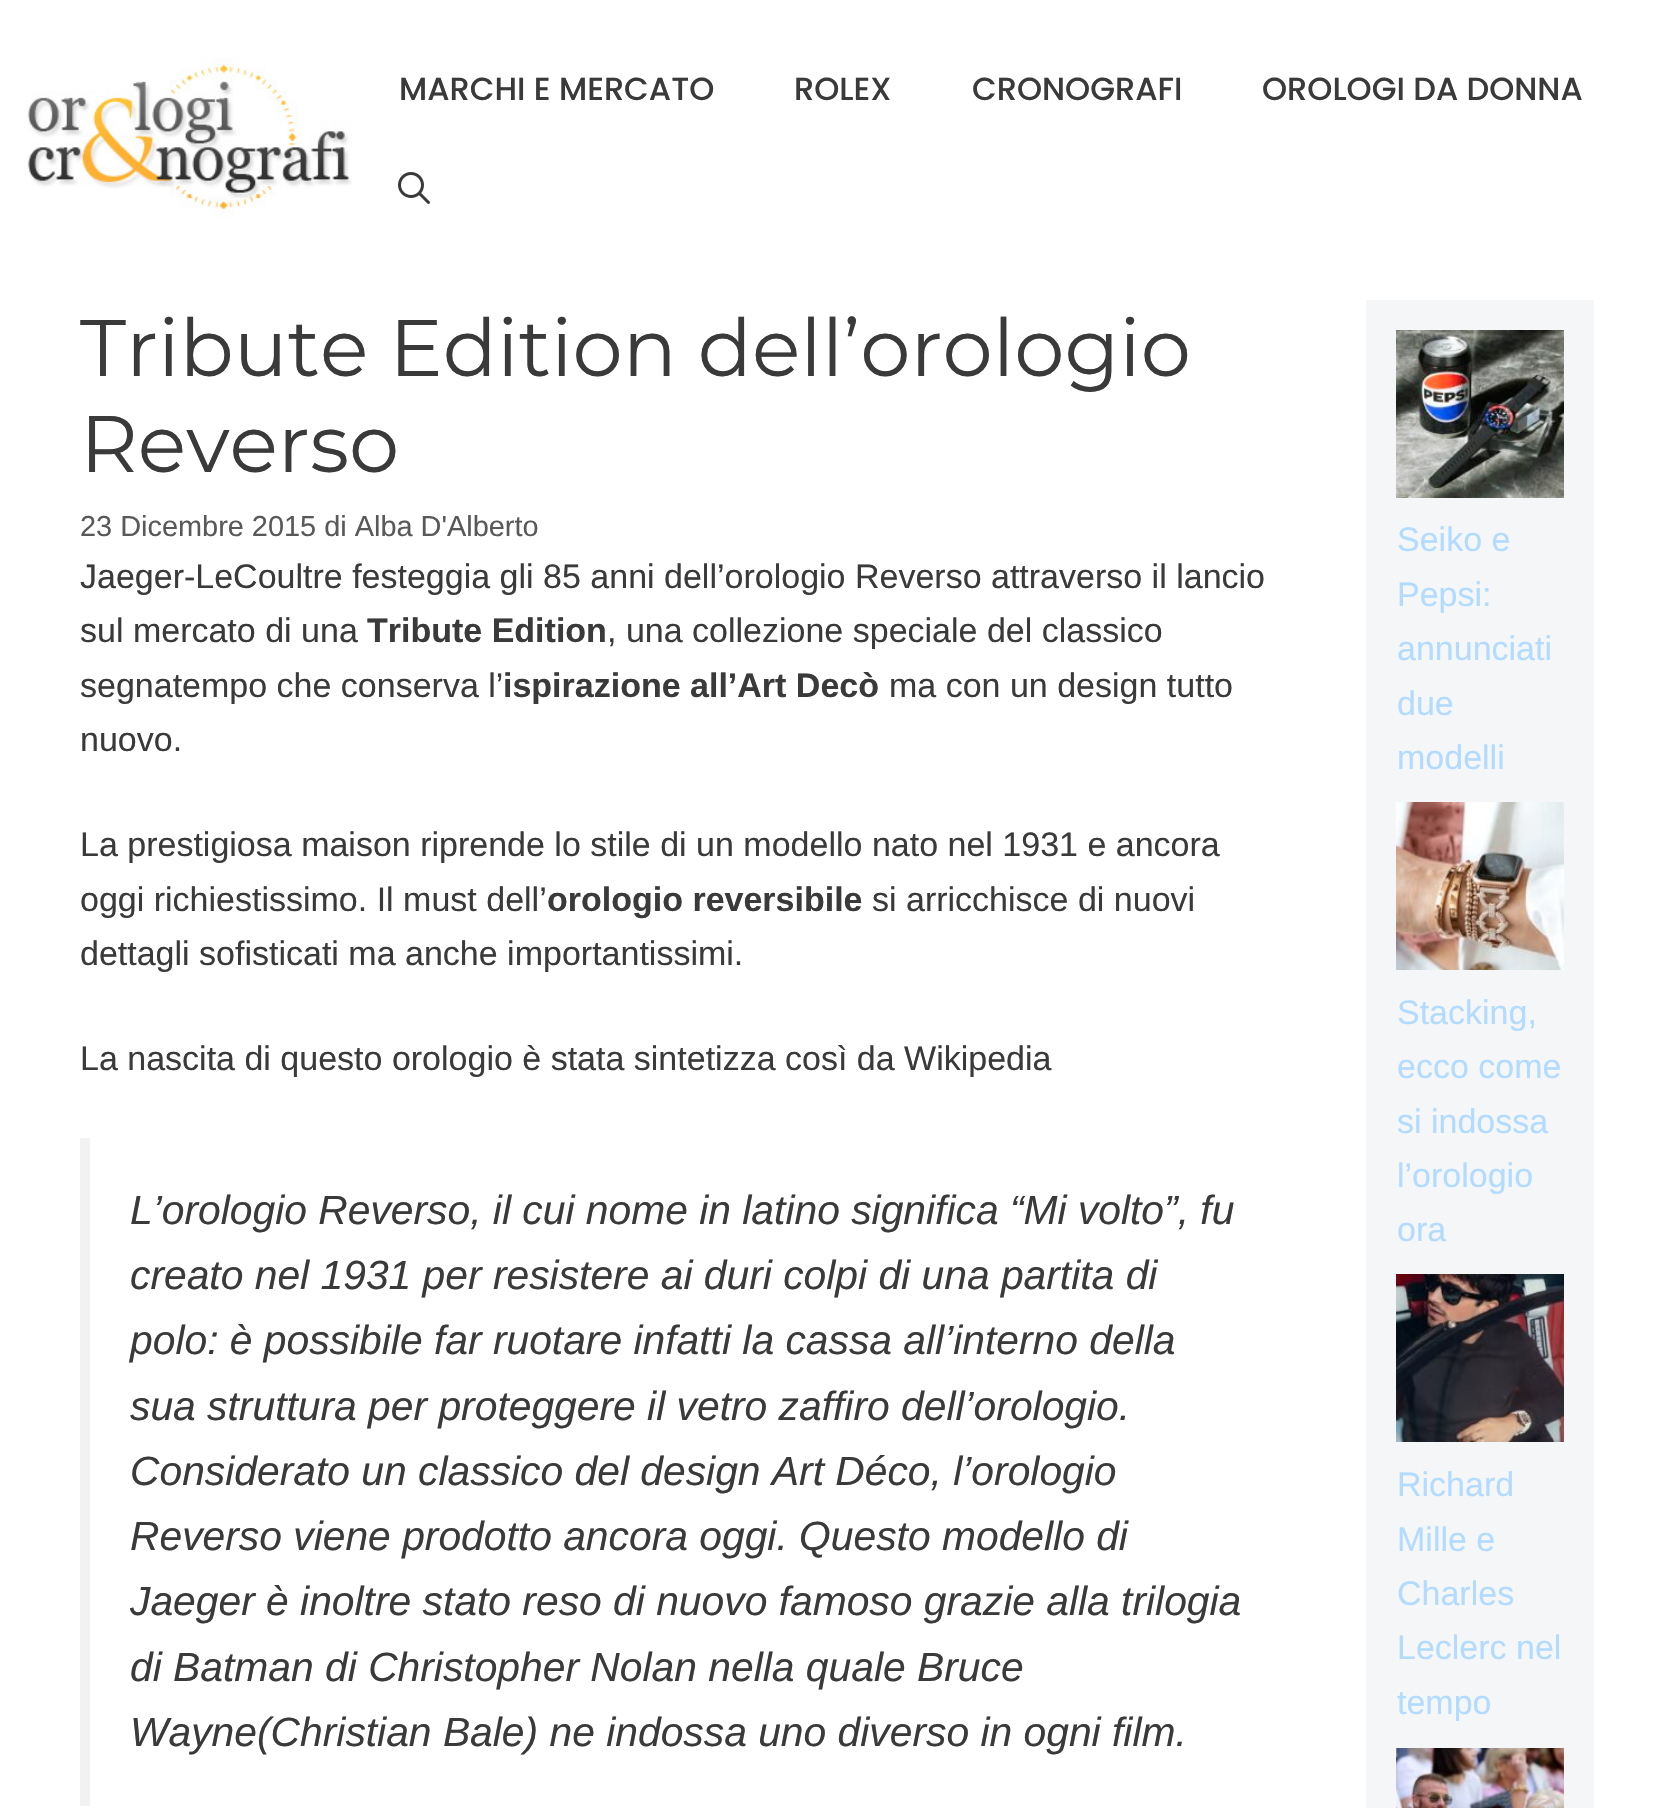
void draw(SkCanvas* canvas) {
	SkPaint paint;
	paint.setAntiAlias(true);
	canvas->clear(0xffffffff);
	canvas->drawImageRect(SkImages::DeferredFromEncodedData(SkData::MakeFromFileName("img1.png")), SkRect::MakeXYWH(27, 58, 325, 160), SkSamplingOptions());
	SkFont f1(fontMgr->matchFamilyStyle("Poppins", SkFontStyle(500, SkFontStyle::kNormal_Width, SkFontStyle::kUpright_Slant)), 32);
	f1.setSubpixel(true);
	paint.setColor(0xff3a3a3a);
	canvas->drawString("MARCHI E MERCATO", 399, 100, f1, paint);
	canvas->drawString("ROLEX", 794, 100, f1, paint);
	canvas->drawString("CRONOGRAFI", 972, 100, f1, paint);
	canvas->drawString("OROLOGI DA DONNA", 1262, 100, f1, paint);
	canvas->drawImageRect(SkImages::DeferredFromEncodedData(SkData::MakeFromFileName("img2.png")), SkRect::MakeXYWH(398, 172, 32, 32), SkSamplingOptions());
	SkFont f2(fontMgr->matchFamilyStyle("Montserrat", SkFontStyle::Normal()), 80);
	f2.setSubpixel(true);
	canvas->drawString("Tribute Edition dell’orologio", 80, 376, f2, paint);
	canvas->drawString("Reverso", 80, 472, f2, paint);
	SkFont f3(fontMgr->matchFamilyStyle("Liberation Sans", SkFontStyle::Normal()), 28.9);
	f3.setSubpixel(true);
	paint.setColor(0xff595959);
	canvas->drawString("23 Dicembre 2015 di Alba D'Alberto", 80, 536, f3, paint);
	SkFont f4(fontMgr->matchFamilyStyle("Liberation Sans", SkFontStyle::Normal()), 34);
	f4.setSubpixel(true);
	paint.setColor(0xff3a3a3a);
	canvas->drawString("Jaeger-LeCoultre festeggia gli 85 anni dell’orologio Reverso attraverso il lancio", 80, 588, f4, paint);
	canvas->drawString("sul mercato di una", 80, 642, f4, paint);
	SkFont f5(fontMgr->matchFamilyStyle("Liberation Sans", SkFontStyle::Bold()), 34);
	f5.setSubpixel(true);
	canvas->drawString("Tribute Edition", 367, 642, f5, paint);
	canvas->drawString(", una collezione speciale del classico", 607, 642, f4, paint);
	canvas->drawString("segnatempo che conserva l’", 80, 697, f4, paint);
	canvas->drawString("ispirazione all’Art Decò", 503, 697, f5, paint);
	canvas->drawString("ma con un design tutto", 889, 697, f4, paint);
	canvas->drawString("nuovo.", 80, 751, f4, paint);
	canvas->drawString("La prestigiosa maison riprende lo stile di un modello nato nel 1931 e ancora", 80, 856, f4, paint);
	canvas->drawString("oggi richiestissimo. Il must dell’", 80, 911, f4, paint);
	canvas->drawString("orologio reversibile", 547, 911, f5, paint);
	canvas->drawString("si arricchisce di nuovi", 872, 911, f4, paint);
	canvas->drawString("dettagli sofisticati ma anche importantissimi.", 80, 965, f4, paint);
	canvas->drawString("La nascita di questo orologio è stata sintetizza così da Wikipedia", 80, 1070, f4, paint);
	paint.setColor(0xfff2f2f2);
	canvas->drawRect(SkRect::MakeXYWH(80, 1138, 10, 668), paint);
	SkFont f6(fontMgr->matchFamilyStyle("Liberation Sans", SkFontStyle::Italic()), 40.8);
	f6.setSubpixel(true);
	paint.setColor(0xff3a3a3a);
	canvas->drawString("L’orologio Reverso, il cui nome in latino significa “Mi volto”, fu", 130, 1224, f6, paint);
	canvas->drawString("creato nel 1931 per resistere ai duri colpi di una partita di", 130, 1289, f6, paint);
	canvas->drawString("polo: è possibile far ruotare infatti la cassa all’interno della", 130, 1354, f6, paint);
	canvas->drawString("sua struttura per proteggere il vetro zaffiro dell’orologio.", 130, 1420, f6, paint);
	canvas->drawString("Considerato un classico del design Art Déco, l’orologio", 130, 1485, f6, paint);
	canvas->drawString("Reverso viene prodotto ancora oggi. Questo modello di", 130, 1550, f6, paint);
	canvas->drawString("Jaeger è inoltre stato reso di nuovo famoso grazie alla trilogia", 130, 1615, f6, paint);
	canvas->drawString("di Batman di Christopher Nolan nella quale Bruce", 130, 1681, f6, paint);
	canvas->drawString("Wayne(Christian Bale) ne indossa uno diverso in ogni film.", 130, 1746, f6, paint);
	paint.setColor(0xfff4f6f7);
	canvas->drawRect(SkRect::MakeXYWH(1366, 300, 228, 1508), paint);
	canvas->drawImageRect(SkImages::DeferredFromEncodedData(SkData::MakeFromFileName("img3.png")), SkRect::MakeXYWH(1396, 330, 168, 168), SkSamplingOptions());
	paint.setColor(0xffb2dbff);
	canvas->drawString("Seiko e", 1397, 551, f4, paint);
	canvas->drawString("Pepsi:", 1397, 606, f4, paint);
	canvas->drawString("annunciati", 1397, 660, f4, paint);
	canvas->drawString("due", 1397, 715, f4, paint);
	canvas->drawString("modelli", 1397, 769, f4, paint);
	canvas->drawImageRect(SkImages::DeferredFromEncodedData(SkData::MakeFromFileName("img4.png")), SkRect::MakeXYWH(1396, 802, 168, 168), SkSamplingOptions());
	canvas->drawString("Stacking,", 1397, 1024, f4, paint);
	canvas->drawString("ecco come", 1397, 1078, f4, paint);
	canvas->drawString("si indossa", 1397, 1133, f4, paint);
	canvas->drawString("l’orologio", 1397, 1187, f4, paint);
	canvas->drawString("ora", 1397, 1241, f4, paint);
	canvas->drawImageRect(SkImages::DeferredFromEncodedData(SkData::MakeFromFileName("img5.png")), SkRect::MakeXYWH(1396, 1274, 168, 168), SkSamplingOptions());
	canvas->drawString("Richard", 1397, 1496, f4, paint);
	canvas->drawString("Mille e", 1397, 1551, f4, paint);
	canvas->drawString("Charles", 1397, 1605, f4, paint);
	canvas->drawString("Leclerc nel", 1397, 1659, f4, paint);
	canvas->drawString("tempo", 1397, 1714, f4, paint);
	canvas->drawImageRect(SkImages::DeferredFromEncodedData(SkData::MakeFromFileName("img6.png")), SkRect::MakeXYWH(1396, 1748, 168, 60), SkSamplingOptions());
}
